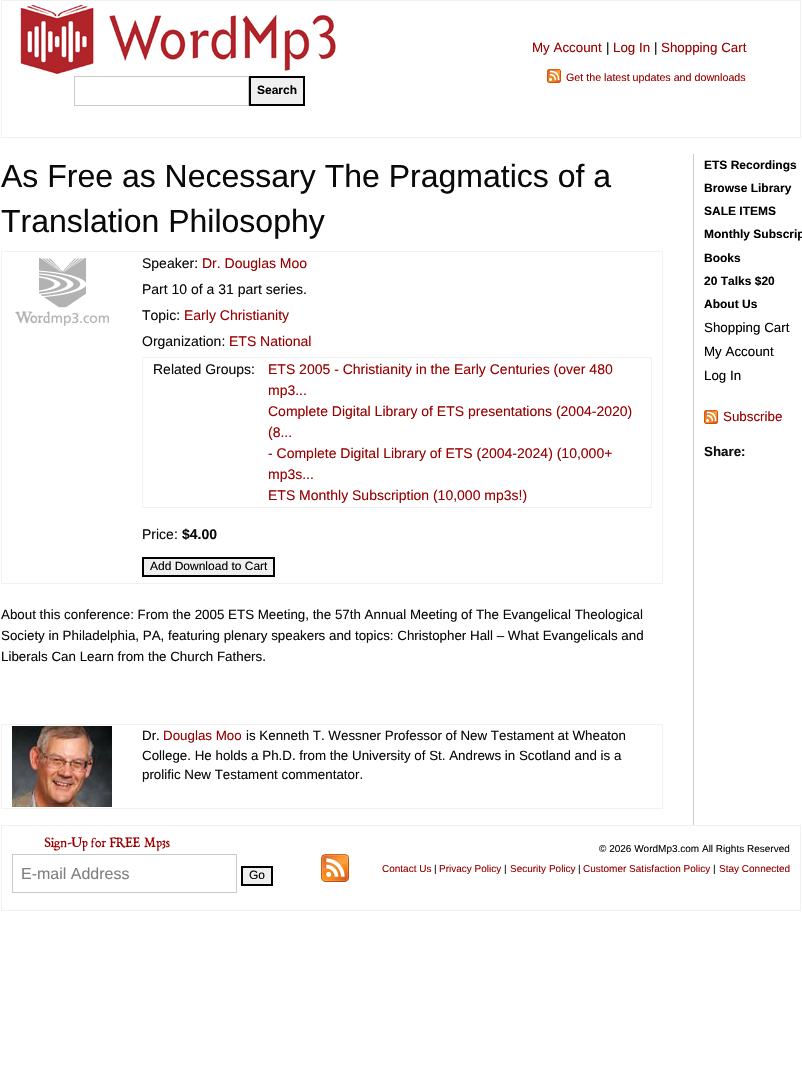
void draw(SkCanvas* canvas) {
	SkPaint paint;
	paint.setAntiAlias(true);
	canvas->clear(0xffffffff);
	paint.setColor(0xfff1f1f1);
	canvas->drawRect(SkRect::MakeXYWH(1, 0, 800, 1), paint);
	canvas->drawRect(SkRect::MakeXYWH(800, 0, 1, 138), paint);
	canvas->drawRect(SkRect::MakeXYWH(1, 137, 800, 1), paint);
	canvas->drawRect(SkRect::MakeXYWH(1, 0, 1, 138), paint);
	SkFont f1(fontMgr->matchFamilyStyle("Liberation Sans", SkFontStyle::Normal()), 13.35);
	f1.setSubpixel(true);
	paint.setColor(0xff990000);
	canvas->drawString("My Account", 532, 52, f1, paint);
	paint.setColor(0xff0a0a0a);
	canvas->drawString("|", 606, 52, f1, paint);
	paint.setColor(0xff990000);
	canvas->drawString("Log In", 613, 52, f1, paint);
	paint.setColor(0xff0a0a0a);
	canvas->drawString("|", 654, 52, f1, paint);
	paint.setColor(0xff990000);
	canvas->drawString("Shopping Cart", 661, 52, f1, paint);
	canvas->drawImageRect(SkImages::DeferredFromEncodedData(SkData::MakeFromFileName("img1.png")), SkRect::MakeXYWH(547, 69, 14, 14), SkSamplingOptions());
	SkFont f2(fontMgr->matchFamilyStyle("Liberation Sans", SkFontStyle::Normal()), 10.7);
	f2.setSubpixel(true);
	canvas->drawString("Get the latest updates and downloads", 566, 81, f2, paint);
	canvas->drawImageRect(SkImages::DeferredFromEncodedData(SkData::MakeFromFileName("img2.png")), SkRect::MakeXYWH(20, 4, 316, 70), SkSamplingOptions());
	paint.setStroke(true);
	paint.setStrokeWidth(1);
	paint.setColor(0xffcacaca);
	canvas->drawRect(SkRect::MakeXYWH(74.5, 76.5, 174, 29), paint);
	paint.setStroke(false);
	paint.setColor(0xffefefef);
	canvas->drawRect(SkRect::MakeXYWH(250, 77, 54, 28), paint);
	paint.setStroke(true);
	paint.setStrokeWidth(2);
	paint.setColor(0xff000000);
	canvas->drawRect(SkRect::MakeXYWH(250, 77, 54, 28), paint);
	SkFont f3(fontMgr->matchFamilyStyle("Liberation Sans", SkFontStyle::Bold()), 12);
	f3.setSubpixel(true);
	paint.setStroke(false);
	canvas->drawString("Search", 257, 94, f3, paint);
	SkFont f4(fontMgr->matchFamilyStyle("Liberation Sans", SkFontStyle::Normal()), 32);
	f4.setSubpixel(true);
	paint.setColor(0xff0a0a0a);
	canvas->drawString("As Free as Necessary The Pragmatics of a", 1, 187, f4, paint);
	canvas->drawString("Translation Philosophy", 1, 232, f4, paint);
	paint.setColor(0xfff1f1f1);
	canvas->drawRect(SkRect::MakeXYWH(1, 251, 662, 1), paint);
	canvas->drawRect(SkRect::MakeXYWH(662, 251, 1, 333), paint);
	canvas->drawRect(SkRect::MakeXYWH(1, 583, 662, 1), paint);
	canvas->drawRect(SkRect::MakeXYWH(1, 251, 1, 333), paint);
	canvas->drawImageRect(SkImages::DeferredFromEncodedData(SkData::MakeFromFileName("img3.png")), SkRect::MakeXYWH(15, 258, 94, 68), SkSamplingOptions());
	SkFont f5(fontMgr->matchFamilyStyle("Liberation Sans", SkFontStyle::Normal()), 14);
	f5.setSubpixel(true);
	paint.setColor(0xff0a0a0a);
	canvas->drawString("Speaker:", 142, 268, f5, paint);
	paint.setColor(0xff990000);
	canvas->drawString("Dr. Douglas Moo", 202, 268, f5, paint);
	paint.setColor(0xff0a0a0a);
	canvas->drawString("Part 10 of a 31 part series.", 142, 294, f5, paint);
	canvas->drawString("Topic:", 142, 320, f5, paint);
	paint.setColor(0xff990000);
	canvas->drawString("Early Christianity", 184, 320, f5, paint);
	paint.setColor(0xff0a0a0a);
	canvas->drawString("Organization:", 142, 346, f5, paint);
	paint.setColor(0xff990000);
	canvas->drawString("ETS National", 229, 346, f5, paint);
	paint.setColor(0xfff1f1f1);
	canvas->drawRect(SkRect::MakeXYWH(142, 357, 510, 1), paint);
	canvas->drawRect(SkRect::MakeXYWH(651, 357, 1, 151), paint);
	canvas->drawRect(SkRect::MakeXYWH(142, 507, 510, 1), paint);
	canvas->drawRect(SkRect::MakeXYWH(142, 357, 1, 151), paint);
	paint.setColor(0xff0a0a0a);
	canvas->drawString("Related Groups:", 153, 374, f5, paint);
	paint.setColor(0xff990000);
	canvas->drawString("ETS 2005 - Christianity in the Early Centuries (over 480", 268, 374, f5, paint);
	canvas->drawString("mp3...", 268, 395, f5, paint);
	canvas->drawString("Complete Digital Library of ETS presentations (2004-2020)", 268, 416, f5, paint);
	canvas->drawString("(8...", 268, 437, f5, paint);
	canvas->drawString("- Complete Digital Library of ETS (2004-2024) (10,000+", 268, 458, f5, paint);
	canvas->drawString("mp3s...", 268, 479, f5, paint);
	canvas->drawString("ETS Monthly Subscription (10,000 mp3s!)", 268, 500, f5, paint);
	paint.setColor(0xff0a0a0a);
	canvas->drawString("Price:", 142, 539, f5, paint);
	SkFont f6(fontMgr->matchFamilyStyle("Liberation Sans", SkFontStyle::Bold()), 14);
	f6.setSubpixel(true);
	canvas->drawString("$4.00", 182, 539, f6, paint);
	paint.setColor(0xffefefef);
	canvas->drawRect(SkRect::MakeXYWH(143, 558, 131, 18), paint);
	paint.setStroke(true);
	paint.setColor(0xff000000);
	canvas->drawRect(SkRect::MakeXYWH(143, 558, 131, 18), paint);
	SkFont f7(fontMgr->matchFamilyStyle("Liberation Sans", SkFontStyle::Normal()), 12);
	f7.setSubpixel(true);
	paint.setStroke(false);
	canvas->drawString("Add Download to Cart", 150, 570, f7, paint);
	paint.setColor(0xff0a0a0a);
	canvas->drawString("About this conference: From the 2005 ETS Meeting, the 57th Annual Meeting of The Evangelical Theological", 1, 619, f1, paint);
	canvas->drawString("Society in Philadelphia, PA, featuring plenary speakers and topics: Christopher Hall – What Evangelicals and", 1, 640, f1, paint);
	canvas->drawString("Liberals Can Learn from the Church Fathers.", 1, 661, f1, paint);
	paint.setColor(0xfff1f1f1);
	canvas->drawRect(SkRect::MakeXYWH(1, 724, 662, 1), paint);
	canvas->drawRect(SkRect::MakeXYWH(662, 724, 1, 85), paint);
	canvas->drawRect(SkRect::MakeXYWH(1, 808, 662, 1), paint);
	canvas->drawRect(SkRect::MakeXYWH(1, 724, 1, 85), paint);
	canvas->drawImageRect(SkImages::DeferredFromEncodedData(SkData::MakeFromFileName("img4.png")), SkRect::MakeXYWH(12, 726, 100, 81), SkSamplingOptions());
	paint.setColor(0xff0a0a0a);
	canvas->drawString("Dr.", 142, 740, f1, paint);
	paint.setColor(0xff990000);
	canvas->drawString("Douglas Moo", 163, 740, f1, paint);
	paint.setColor(0xff0a0a0a);
	canvas->drawString("is Kenneth T. Wessner Professor of New Testament at Wheaton", 246, 740, f1, paint);
	canvas->drawString("College. He holds a Ph.D. from the University of St. Andrews in Scotland and is a", 142, 760, f1, paint);
	canvas->drawString("prolific New Testament commentator.", 142, 779, f1, paint);
	paint.setColor(0xffcccccc);
	canvas->drawRect(SkRect::MakeXYWH(693, 154, 1, 671), paint);
	paint.setColor(0xff000000);
	canvas->drawString("ETS Recordings", 704, 169, f3, paint);
	canvas->drawString("Browse Library", 704, 192, f3, paint);
	canvas->drawString("SALE ITEMS", 704, 215, f3, paint);
	canvas->drawString("Monthly Subscrip", 704, 238, f3, paint);
	canvas->drawString("Books", 704, 262, f3, paint);
	canvas->drawString("20 Talks $20", 704, 285, f3, paint);
	canvas->drawString("About Us", 704, 308, f3, paint);
	canvas->drawString("Shopping Cart", 704, 332, f1, paint);
	canvas->drawString("My Account", 704, 356, f1, paint);
	canvas->drawString("Log In", 704, 380, f1, paint);
	canvas->drawImageRect(SkImages::DeferredFromEncodedData(SkData::MakeFromFileName("img1.png")), SkRect::MakeXYWH(704, 410, 14, 14), SkSamplingOptions());
	paint.setColor(0xff990000);
	canvas->drawString("Subscribe", 723, 421, f1, paint);
	SkFont f8(fontMgr->matchFamilyStyle("Liberation Sans", SkFontStyle::Bold()), 13.35);
	f8.setSubpixel(true);
	paint.setColor(0xff0a0a0a);
	canvas->drawString("Share:", 704, 456, f8, paint);
	paint.setColor(0xfff1f1f1);
	canvas->drawRect(SkRect::MakeXYWH(1, 825, 800, 1), paint);
	canvas->drawRect(SkRect::MakeXYWH(800, 825, 1, 86), paint);
	canvas->drawRect(SkRect::MakeXYWH(1, 910, 800, 1), paint);
	canvas->drawRect(SkRect::MakeXYWH(1, 825, 1, 86), paint);
	canvas->drawImageRect(SkImages::DeferredFromEncodedData(SkData::MakeFromFileName("img5.png")), SkRect::MakeXYWH(44, 837, 126, 14), SkSamplingOptions());
	paint.setStroke(true);
	paint.setStrokeWidth(1);
	paint.setColor(0xffcacaca);
	canvas->drawRect(SkRect::MakeXYWH(12.5, 854.5, 224, 38), paint);
	SkFont f9(fontMgr->matchFamilyStyle("Liberation Sans", SkFontStyle::Normal()), 16);
	f9.setSubpixel(true);
	paint.setStroke(false);
	paint.setColor(0xff808080);
	canvas->drawString("E-mail Address", 21, 879, f9, paint);
	paint.setColor(0xffefefef);
	canvas->drawRect(SkRect::MakeXYWH(242, 867, 30, 18), paint);
	paint.setStroke(true);
	paint.setStrokeWidth(2);
	paint.setColor(0xff000000);
	canvas->drawRect(SkRect::MakeXYWH(242, 867, 30, 18), paint);
	paint.setStroke(false);
	canvas->drawString("Go", 249, 879, f7, paint);
	canvas->drawImageRect(SkImages::DeferredFromEncodedData(SkData::MakeFromFileName("img6.png")), SkRect::MakeXYWH(321, 854, 28, 28), SkSamplingOptions());
	SkFont f10(fontMgr->matchFamilyStyle("Liberation Sans", SkFontStyle::Normal()), 10);
	f10.setSubpixel(true);
	paint.setColor(0xff0a0a0a);
	canvas->drawString("© 2026 WordMp3.com All Rights Reserved", 599, 852, f10, paint);
	paint.setColor(0xff990000);
	canvas->drawString("Contact Us", 382, 872, f10, paint);
	paint.setColor(0xff0a0a0a);
	canvas->drawString("|", 434, 872, f10, paint);
	paint.setColor(0xff990000);
	canvas->drawString("Privacy Policy", 439, 872, f10, paint);
	paint.setColor(0xff0a0a0a);
	canvas->drawString("|", 504, 872, f10, paint);
	paint.setColor(0xff990000);
	canvas->drawString("Security Policy", 510, 872, f10, paint);
	paint.setColor(0xff0a0a0a);
	canvas->drawString("|", 578, 872, f10, paint);
	paint.setColor(0xff990000);
	canvas->drawString("Customer Satisfaction Policy", 583, 872, f10, paint);
	paint.setColor(0xff0a0a0a);
	canvas->drawString("|", 713, 872, f10, paint);
	paint.setColor(0xff990000);
	canvas->drawString("Stay Connected", 719, 872, f10, paint);
}
